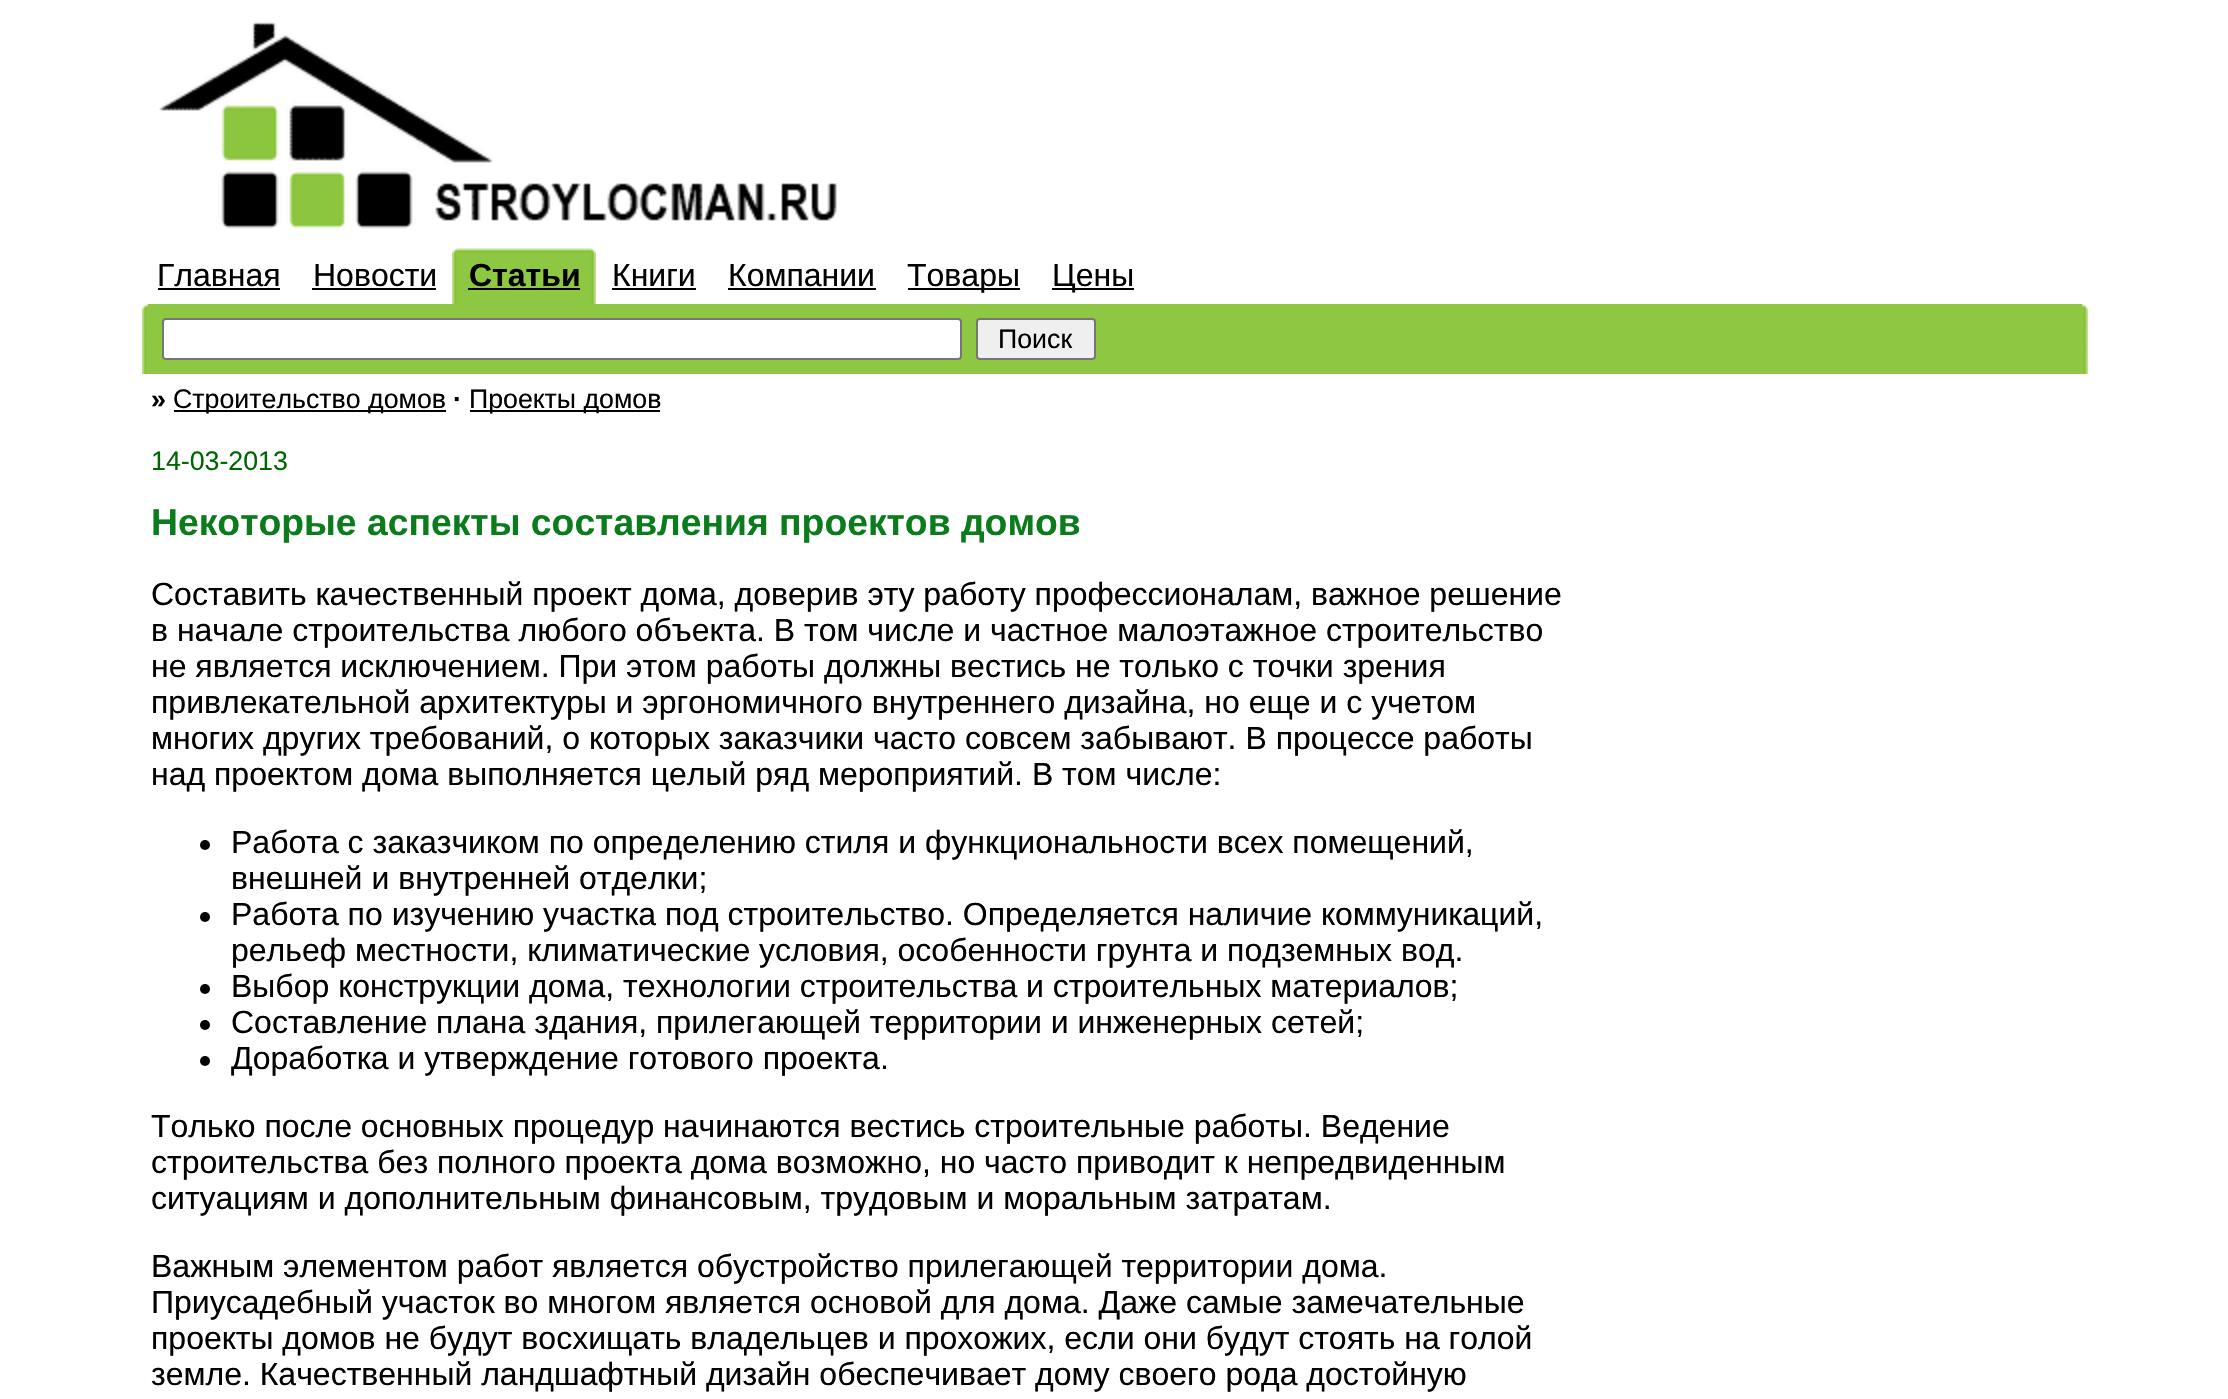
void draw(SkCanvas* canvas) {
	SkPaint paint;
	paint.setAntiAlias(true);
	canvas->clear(0xffffffff);
	canvas->drawImageRect(SkImages::DeferredFromEncodedData(SkData::MakeFromFileName("img1.png")), SkRect::MakeXYWH(159, 21, 678, 208), SkSamplingOptions());
	SkFont f1(fontMgr->matchFamilyStyle("Liberation Sans", SkFontStyle::Normal()), 32);
	f1.setSubpixel(true);
	paint.setColor(0xff000000);
	canvas->drawString("Главная", 157, 286, f1, paint);
	canvas->drawRect(SkRect::MakeXYWH(158, 288, 122, 2), paint);
	canvas->drawString("Новости", 313, 286, f1, paint);
	canvas->drawRect(SkRect::MakeXYWH(312, 288, 124, 2), paint);
	canvas->drawImageRect(SkImages::DeferredFromEncodedData(SkData::MakeFromFileName("img2.png")), SkRect::MakeXYWH(452, 248, 6, 56), SkSamplingOptions());
	paint.setColor(0xff8ec742);
	canvas->drawRect(SkRect::MakeXYWH(458, 253, 132, 51), paint);
	canvas->drawImageRect(SkImages::DeferredFromEncodedData(SkData::MakeFromFileName("img3.png")), SkRect::MakeXYWH(458, 248, 132, 5), SkSamplingOptions());
	SkFont f2(fontMgr->matchFamilyStyle("Liberation Sans", SkFontStyle::Bold()), 32);
	f2.setSubpixel(true);
	paint.setColor(0xff000000);
	canvas->drawString("Статьи", 469, 286, f2, paint);
	canvas->drawRect(SkRect::MakeXYWH(468, 288, 112, 2), paint);
	canvas->drawImageRect(SkImages::DeferredFromEncodedData(SkData::MakeFromFileName("img4.png")), SkRect::MakeXYWH(590, 248, 6, 56), SkSamplingOptions());
	canvas->drawString("Книги", 612, 286, f1, paint);
	canvas->drawRect(SkRect::MakeXYWH(612, 288, 84, 2), paint);
	canvas->drawString("Компании", 728, 286, f1, paint);
	canvas->drawRect(SkRect::MakeXYWH(728, 288, 148, 2), paint);
	canvas->drawRect(SkRect::MakeXYWH(908, 288, 112, 2), paint);
	canvas->drawString("Товары", 907, 286, f1, paint);
	canvas->drawRect(SkRect::MakeXYWH(1052, 288, 82, 2), paint);
	canvas->drawString("Цены", 1052, 286, f1, paint);
	canvas->drawImageRect(SkImages::DeferredFromEncodedData(SkData::MakeFromFileName("img5.png")), SkRect::MakeXYWH(142, 304, 6, 70), SkSamplingOptions());
	paint.setColor(0xff8ec742);
	canvas->drawRect(SkRect::MakeXYWH(148, 304, 1934, 70), paint);
	paint.setColor(0xffffffff);
	canvas->drawRoundRect(SkRect::MakeXYWH(163, 319, 798, 40), 3, 3, paint);
	paint.setStroke(true);
	paint.setStrokeWidth(2);
	paint.setColor(0xff767676);
	canvas->drawRoundRect(SkRect::MakeXYWH(163, 319, 798, 40), 3, 3, paint);
	canvas->drawImageRect(SkImages::DeferredFromEncodedData(SkData::MakeFromFileName("img6.png")), SkRect::MakeXYWH(2082, 304, 6, 70), SkSamplingOptions());
	paint.setStroke(false);
	paint.setColor(0xffefefef);
	canvas->drawRoundRect(SkRect::MakeXYWH(977, 319, 118, 40), 3, 3, paint);
	paint.setStroke(true);
	paint.setColor(0xff767676);
	canvas->drawRoundRect(SkRect::MakeXYWH(977, 319, 118, 40), 3, 3, paint);
	SkFont f3(fontMgr->matchFamilyStyle("Liberation Sans", SkFontStyle::Normal()), 26.75);
	f3.setSubpixel(true);
	paint.setStroke(false);
	paint.setColor(0xff000000);
	canvas->drawString("Поиск", 998, 348, f3, paint);
	SkFont f4(fontMgr->matchFamilyStyle("Liberation Sans", SkFontStyle::Bold()), 26.75);
	f4.setSubpixel(true);
	canvas->drawString("»", 151, 408, f4, paint);
	canvas->drawRect(SkRect::MakeXYWH(174, 410, 272, 2), paint);
	canvas->drawString("Строительство домов", 173, 408, f3, paint);
	canvas->drawString("·", 453, 408, f4, paint);
	canvas->drawRect(SkRect::MakeXYWH(470, 410, 190, 2), paint);
	canvas->drawString("Проекты домов", 469, 408, f3, paint);
	paint.setColor(0xff006600);
	canvas->drawString("14-03-2013", 151, 470, f3, paint);
	SkFont f5(fontMgr->matchFamilyStyle("Liberation Sans", SkFontStyle::Bold()), 37.3);
	f5.setSubpixel(true);
	paint.setColor(0xff0b7c1b);
	canvas->drawString("Некоторые аспекты составления проектов домов", 151, 535, f5, paint);
	paint.setColor(0xff000000);
	canvas->drawString("Составить качественный проект дома, доверив эту работу профессионалам, важное решение", 151, 605, f1, paint);
	canvas->drawString("в начале строительства любого объекта. В том числе и частное малоэтажное строительство", 151, 641, f1, paint);
	canvas->drawString("не является исключением. При этом работы должны вестись не только с точки зрения", 151, 677, f1, paint);
	canvas->drawString("привлекательной архитектуры и эргономичного внутреннего дизайна, но еще и с учетом", 151, 713, f1, paint);
	canvas->drawString("многих других требований, о которых заказчики часто совсем забывают. В процессе работы", 151, 749, f1, paint);
	canvas->drawString("над проектом дома выполняется целый ряд мероприятий. В том числе:", 151, 785, f1, paint);
	canvas->drawCircle(205, 845, 5, paint);
	canvas->drawString("Работа с заказчиком по определению стиля и функциональности всех помещений,", 231, 853, f1, paint);
	canvas->drawString("внешней и внутренней отделки;", 231, 889, f1, paint);
	canvas->drawCircle(205, 917, 5, paint);
	canvas->drawString("Работа по изучению участка под строительство. Определяется наличие коммуникаций,", 231, 925, f1, paint);
	canvas->drawString("рельеф местности, климатические условия, особенности грунта и подземных вод.", 231, 961, f1, paint);
	canvas->drawCircle(205, 989, 5, paint);
	canvas->drawString("Выбор конструкции дома, технологии строительства и строительных материалов;", 231, 997, f1, paint);
	canvas->drawCircle(205, 1025, 5, paint);
	canvas->drawString("Составление плана здания, прилегающей территории и инженерных сетей;", 231, 1033, f1, paint);
	canvas->drawCircle(205, 1061, 5, paint);
	canvas->drawString("Доработка и утверждение готового проекта.", 231, 1069, f1, paint);
	canvas->drawString("Только после основных процедур начинаются вестись строительные работы. Ведение", 151, 1137, f1, paint);
	canvas->drawString("строительства без полного проекта дома возможно, но часто приводит к непредвиденным", 151, 1173, f1, paint);
	canvas->drawString("ситуациям и дополнительным финансовым, трудовым и моральным затратам.", 151, 1209, f1, paint);
	canvas->drawString("Важным элементом работ является обустройство прилегающей территории дома.", 151, 1277, f1, paint);
	canvas->drawString("Приусадебный участок во многом является основой для дома. Даже самые замечательные", 151, 1313, f1, paint);
	canvas->drawString("проекты домов не будут восхищать владельцев и прохожих, если они будут стоять на голой", 151, 1349, f1, paint);
	canvas->drawString("земле. Качественный ландшафтный дизайн обеспечивает дому своего рода достойную", 151, 1385, f1, paint);
}
